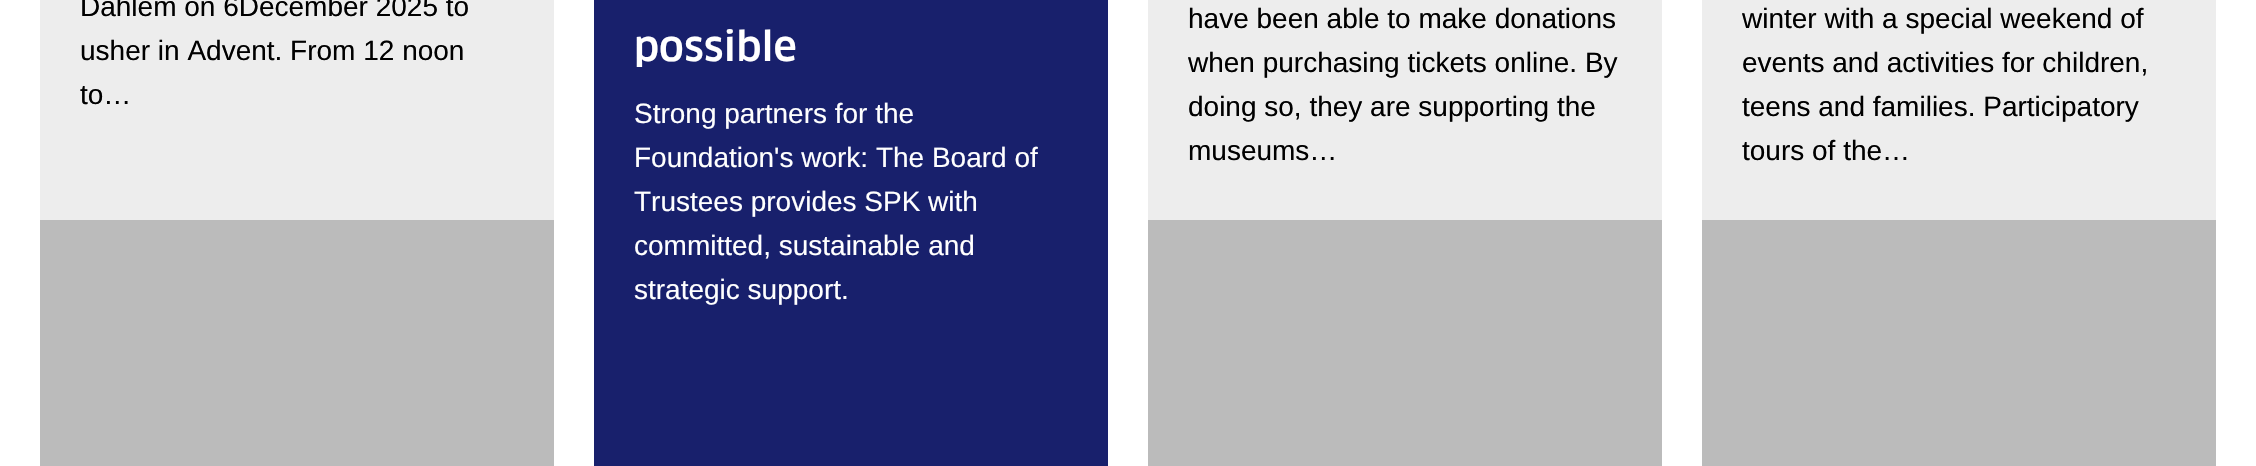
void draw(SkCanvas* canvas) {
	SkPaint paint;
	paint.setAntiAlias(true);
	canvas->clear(0xffffffff);
	paint.setColor(0xffededed);
	canvas->drawRect(SkRect::MakeXYWH(40, 0, 514, 220), paint);
	SkFont f1(fontMgr->matchFamilyStyle("Liberation Sans", SkFontStyle::Normal()), 28);
	f1.setSubpixel(true);
	paint.setColor(0xff000000);
	canvas->drawString("Dahlem on 6December 2025 to", 80, 16, f1, paint);
	canvas->drawString("usher in Advent. From 12 noon", 80, 60, f1, paint);
	canvas->drawString("to…", 80, 104, f1, paint);
	paint.setColor(0xffbbbbbb);
	canvas->drawRect(SkRect::MakeXYWH(40, 220, 514, 246), paint);
	paint.setColor(0xff18206c);
	canvas->drawRect(SkRect::MakeXYWH(594, 0, 514, 466), paint);
	SkFont f2(fontMgr->matchFamilyStyle("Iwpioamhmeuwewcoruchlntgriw", SkFontStyle(500, SkFontStyle::kNormal_Width, SkFontStyle::kUpright_Slant)), 40);
	f2.setSubpixel(true);
	paint.setColor(0xffffffff);
	canvas->drawString("possible", 634, 61, f2, paint);
	canvas->drawString("Strong partners for the", 634, 123, f1, paint);
	canvas->drawString("Foundation's work: The Board of", 634, 167, f1, paint);
	canvas->drawString("Trustees provides SPK with", 634, 211, f1, paint);
	canvas->drawString("committed, sustainable and", 634, 255, f1, paint);
	canvas->drawString("strategic support.", 634, 299, f1, paint);
	paint.setColor(0xffededed);
	canvas->drawRect(SkRect::MakeXYWH(1148, 0, 514, 220), paint);
	paint.setColor(0xff000000);
	canvas->drawString("have been able to make donations", 1188, 28, f1, paint);
	canvas->drawString("when purchasing tickets online. By", 1188, 72, f1, paint);
	canvas->drawString("doing so, they are supporting the", 1188, 116, f1, paint);
	canvas->drawString("museums…", 1188, 160, f1, paint);
	paint.setColor(0xffbbbbbb);
	canvas->drawRect(SkRect::MakeXYWH(1148, 220, 514, 246), paint);
	paint.setColor(0xffededed);
	canvas->drawRect(SkRect::MakeXYWH(1702, 0, 514, 220), paint);
	paint.setColor(0xff000000);
	canvas->drawString("winter with a special weekend of", 1742, 28, f1, paint);
	canvas->drawString("events and activities for children,", 1742, 72, f1, paint);
	canvas->drawString("teens and families. Participatory", 1742, 116, f1, paint);
	canvas->drawString("tours of the…", 1742, 160, f1, paint);
	paint.setColor(0xffbbbbbb);
	canvas->drawRect(SkRect::MakeXYWH(1702, 220, 514, 246), paint);
}
